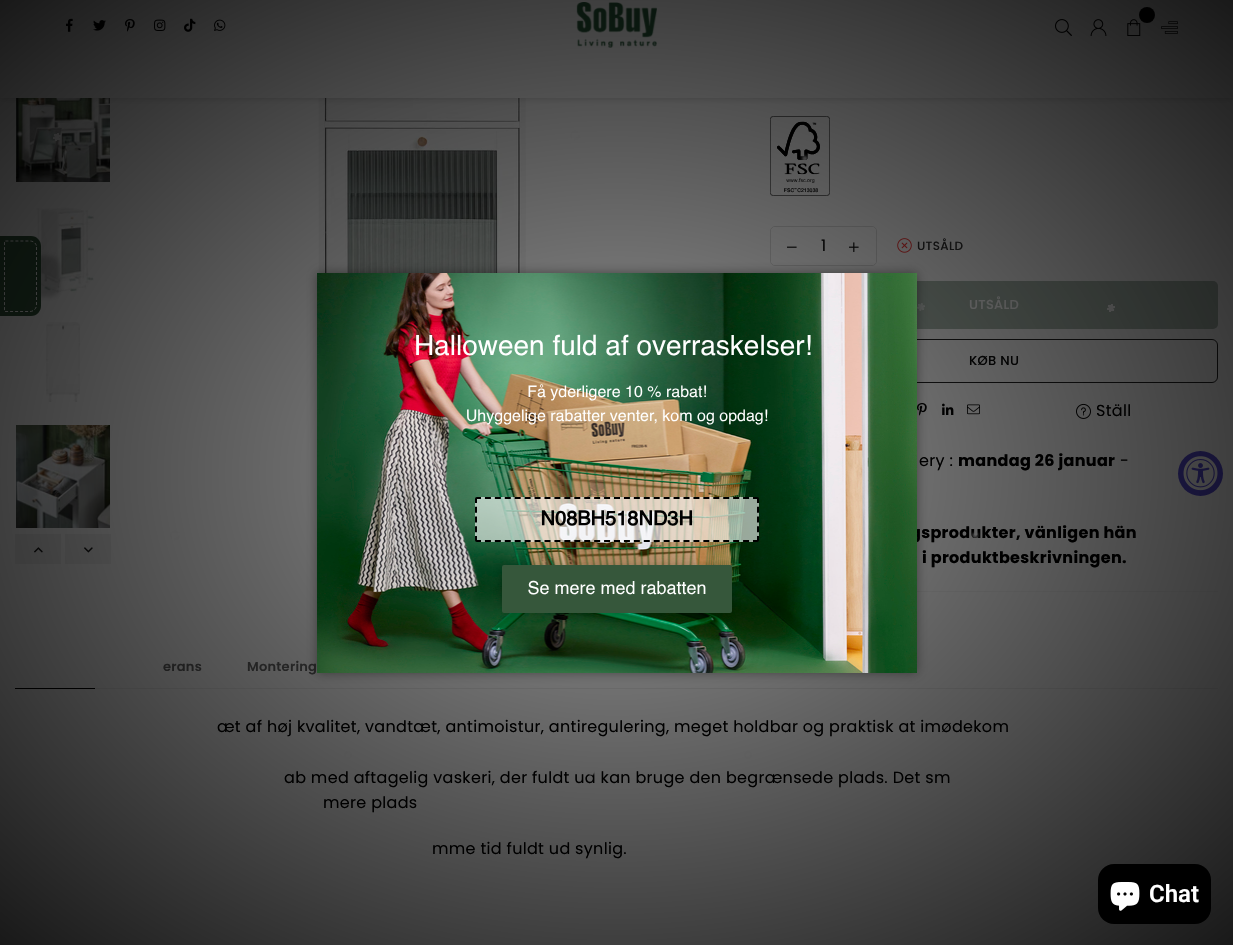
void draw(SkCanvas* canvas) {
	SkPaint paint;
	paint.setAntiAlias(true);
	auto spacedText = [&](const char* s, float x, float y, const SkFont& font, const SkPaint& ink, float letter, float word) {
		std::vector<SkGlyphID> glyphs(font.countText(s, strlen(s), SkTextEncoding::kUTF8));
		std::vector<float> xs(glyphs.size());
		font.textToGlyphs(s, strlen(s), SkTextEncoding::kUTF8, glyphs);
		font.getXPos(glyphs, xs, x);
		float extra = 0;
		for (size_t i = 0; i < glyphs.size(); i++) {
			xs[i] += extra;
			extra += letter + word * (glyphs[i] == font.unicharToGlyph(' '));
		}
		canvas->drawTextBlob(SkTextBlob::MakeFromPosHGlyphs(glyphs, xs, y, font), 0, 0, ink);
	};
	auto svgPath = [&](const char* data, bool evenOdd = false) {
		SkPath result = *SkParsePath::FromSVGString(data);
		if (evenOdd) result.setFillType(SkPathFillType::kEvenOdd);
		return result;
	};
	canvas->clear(0xffffffff);
	canvas->drawImageRect(SkImages::DeferredFromEncodedData(SkData::MakeFromFileName("img14.png")), SkRect::MakeXYWH(16, 98, 94, 84), SkSamplingOptions());
	canvas->drawImageRect(SkImages::DeferredFromEncodedData(SkData::MakeFromFileName("img15.png")), SkRect::MakeXYWH(31, 207, 63, 86), SkSamplingOptions());
	canvas->drawImageRect(SkImages::DeferredFromEncodedData(SkData::MakeFromFileName("img16.png")), SkRect::MakeXYWH(46, 322, 34, 80), SkSamplingOptions());
	canvas->drawImageRect(SkImages::DeferredFromEncodedData(SkData::MakeFromFileName("img17.png")), SkRect::MakeXYWH(16, 425, 94, 103), SkSamplingOptions());
	canvas->drawImageRect(SkImages::DeferredFromEncodedData(SkData::MakeFromFileName("img21.png")), SkRect::MakeXYWH(770, 116, 60, 80), SkSamplingOptions());
	paint.setStroke(true);
	paint.setStrokeWidth(1);
	paint.setColor(0xffdddddd);
	canvas->drawRoundRect(SkRect::MakeXYWH(770.5, 226.5, 106, 39), 4.5, 4.5, paint);
	paint.setStroke(false);
	paint.setColor(0xffffffff);
	canvas->drawPath(svgPath("M775 227H806V265H775C773 265 771 263 771 261V231C771 229 773 227 775 227Z"), paint);
	canvas->drawImageRect(SkImages::DeferredFromEncodedData(SkData::MakeFromFileName("img22.png")), SkRect::MakeXYWH(787, 246, 10, 2), SkSamplingOptions());
	SkFont f1(fontMgr->matchFamilyStyle("Poppins", SkFontStyle::Normal()), 16);
	f1.setSubpixel(true);
	paint.setColor(0xff111111);
	canvas->drawString("1", 821, 251, f1, paint);
	paint.setColor(0xffffffff);
	canvas->drawPath(svgPath("M841 227H872C874 227 876 229 876 231V261C876 263 874 265 872 265H841Z"), paint);
	canvas->drawImageRect(SkImages::DeferredFromEncodedData(SkData::MakeFromFileName("img23.png")), SkRect::MakeXYWH(849, 242, 10, 10), SkSamplingOptions());
	canvas->drawImageRect(SkImages::DeferredFromEncodedData(SkData::MakeFromFileName("img24.png")), SkRect::MakeXYWH(897, 238, 15, 15), SkSamplingOptions());
	SkFont f2(fontMgr->matchFamilyStyle("Poppins", SkFontStyle(500, SkFontStyle::kNormal_Width, SkFontStyle::kUpright_Slant)), 12);
	f2.setSubpixel(true);
	paint.setColor(0xff333333);
	spacedText("UTSÅLD", 917, 250, f2, paint, 0.32, 0);
	paint.setColor(0xffadbcb1);
	canvas->drawRoundRect(SkRect::MakeXYWH(770, 281, 448, 48), 5, 5, paint);
	SkFont f3(fontMgr->matchFamilyStyle("Poppins", SkFontStyle(500, SkFontStyle::kNormal_Width, SkFontStyle::kUpright_Slant)), 13);
	f3.setSubpixel(true);
	paint.setColor(0xffffffff);
	spacedText("UTSÅLD", 969, 309, f3, paint, 0.32, 0);
	paint.setStroke(true);
	paint.setColor(0xff222222);
	canvas->drawRoundRect(SkRect::MakeXYWH(770.5, 339.5, 447, 43), 5.5, 5.5, paint);
	paint.setStroke(false);
	paint.setColor(0xff090a0a);
	spacedText("KØB NU", 969, 365, f3, paint, 0.32, 0);
	canvas->drawImageRect(SkImages::DeferredFromEncodedData(SkData::MakeFromFileName("img3.png")), SkRect::MakeXYWH(917, 403, 10, 13), SkSamplingOptions());
	canvas->drawImageRect(SkImages::DeferredFromEncodedData(SkData::MakeFromFileName("img25.png")), SkRect::MakeXYWH(942, 403, 12, 12), SkSamplingOptions());
	canvas->drawImageRect(SkImages::DeferredFromEncodedData(SkData::MakeFromFileName("img26.png")), SkRect::MakeXYWH(967, 404, 13, 11), SkSamplingOptions());
	canvas->drawImageRect(SkImages::DeferredFromEncodedData(SkData::MakeFromFileName("img27.png")), SkRect::MakeXYWH(1076, 403, 15, 16), SkSamplingOptions());
	paint.setColor(0xff000000);
	spacedText("Ställ", 1096, 416, f1, paint, 0.32, 0);
	spacedText("ery :", 919, 466, f1, paint, 0.32, 0);
	SkFont f4(fontMgr->matchFamilyStyle("Poppins", SkFontStyle::Bold()), 16);
	f4.setSubpixel(true);
	spacedText("mandag 26 januar", 958, 466, f4, paint, 0.32, 0);
	spacedText("-", 1120, 466, f1, paint, 0.32, 0);
	spacedText("gsprodukter, vänligen hän", 910, 538, f4, paint, 0.32, 0);
	spacedText("i produktbeskrivningen.", 922, 563, f4, paint, 0.32, 0);
	paint.setColor(0xfff5f5f5);
	canvas->drawRect(SkRect::MakeXYWH(917, 591, 301, 1), paint);
	paint.setColor(0xffeeeeee);
	canvas->drawRect(SkRect::MakeXYWH(95, 688, 1123, 1), paint);
	SkFont f5(fontMgr->matchFamilyStyle("Poppins", SkFontStyle(600, SkFontStyle::kNormal_Width, SkFontStyle::kUpright_Slant)), 13);
	f5.setSubpixel(true);
	paint.setColor(0xff666666);
	spacedText("erans", 163, 671, f5, paint, 0.25, 0);
	spacedText("Montering", 247, 671, f5, paint, 0.25, 0);
	paint.setColor(0xff000000);
	canvas->drawRect(SkRect::MakeXYWH(15, 688, 80, 1), paint);
	spacedText("æt af høj kvalitet, vandtæt, antimoistur, antiregulering, meget holdbar og praktisk at imødekom", 217, 732, f1, paint, 0.32, 0);
	spacedText("ab med aftagelig vaskeri, der fuldt ud kan bruge den begrænsede plads. Det sm", 284, 783, f1, paint, 0.32, 0);
	spacedText("mere plads", 323, 808, f1, paint, 0.32, 0);
	spacedText("mme tid fuldt ud synlig.", 432, 854, f1, paint, 0.32, 0);
	canvas->drawImageRect(SkImages::DeferredFromEncodedData(SkData::MakeFromFileName("img13.png")), SkRect::MakeXYWH(16, 122, 1136, 819), SkSamplingOptions());
	canvas->drawImageRect(SkImages::DeferredFromEncodedData(SkData::MakeFromFileName("img20.png")), SkRect::MakeXYWH(318, 98, 208, 175), SkSamplingOptions());
	paint.setColor(0x33000000);
	paint.setMaskFilter(SkMaskFilter::MakeBlur(kNormal_SkBlurStyle, 3.5));
	canvas->drawRect(SkRect::MakeXYWH(0, 0, 1233, 98), paint);
	paint.setMaskFilter(nullptr);
	paint.setColor(0xffffffff);
	canvas->drawRect(SkRect::MakeXYWH(0, 0, 1233, 98), paint);
	canvas->drawImageRect(SkImages::DeferredFromEncodedData(SkData::MakeFromFileName("img1.png")), SkRect::MakeXYWH(66, 18, 7, 14), SkSamplingOptions());
	canvas->drawImageRect(SkImages::DeferredFromEncodedData(SkData::MakeFromFileName("img2.png")), SkRect::MakeXYWH(93, 20, 13, 11), SkSamplingOptions());
	canvas->drawImageRect(SkImages::DeferredFromEncodedData(SkData::MakeFromFileName("img3.png")), SkRect::MakeXYWH(125, 19, 10, 13), SkSamplingOptions());
	canvas->drawImageRect(SkImages::DeferredFromEncodedData(SkData::MakeFromFileName("img4.png")), SkRect::MakeXYWH(154, 19, 12, 12), SkSamplingOptions());
	canvas->drawImageRect(SkImages::DeferredFromEncodedData(SkData::MakeFromFileName("img5.png")), SkRect::MakeXYWH(184, 18, 12, 14), SkSamplingOptions());
	canvas->drawImageRect(SkImages::DeferredFromEncodedData(SkData::MakeFromFileName("img6.png")), SkRect::MakeXYWH(214, 19, 12, 12), SkSamplingOptions());
	canvas->drawImageRect(SkImages::DeferredFromEncodedData(SkData::MakeFromFileName("img7.png")), SkRect::MakeXYWH(576, 2, 81, 46), SkSamplingOptions());
	canvas->drawImageRect(SkImages::DeferredFromEncodedData(SkData::MakeFromFileName("img8.png")), SkRect::MakeXYWH(1055, 19, 17, 17), SkSamplingOptions());
	canvas->drawImageRect(SkImages::DeferredFromEncodedData(SkData::MakeFromFileName("img9.png")), SkRect::MakeXYWH(1090, 19, 17, 17), SkSamplingOptions());
	canvas->drawImageRect(SkImages::DeferredFromEncodedData(SkData::MakeFromFileName("img10.png")), SkRect::MakeXYWH(1127, 19, 14, 17), SkSamplingOptions());
	paint.setColor(0xff000000);
	canvas->drawCircle(1147, 15, 8, paint);
	canvas->drawImageRect(SkImages::DeferredFromEncodedData(SkData::MakeFromFileName("img11.png")), SkRect::MakeXYWH(1161, 21, 17, 13), SkSamplingOptions());
	paint.setColor(0x33000000);
	paint.setMaskFilter(SkMaskFilter::MakeBlur(kNormal_SkBlurStyle, 2.5));
	canvas->drawRoundRect(SkRect::MakeXYWH(-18, 256, 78, 41), 10, 10, paint);
	paint.setMaskFilter(nullptr);
	paint.setColor(0xff33583b);
	canvas->drawPath(svgPath("M41 246V306C41 311 37 316 31 316H0V236H31C37 236 41 241 41 246Z"), paint);
	paint.setStroke(true);
	paint.setColor(0xffffffff);
	paint.setPathEffect(SkDashPathEffect::Make({{3, 2}}, 0));
	canvas->drawPath(svgPath("M36.5 247V305C36.5 308.5 33.5 311.5 30 311.5H4.5V241H30C33.5 241 36.5 243.5 36.5 247Z"), paint);
	paint.setPathEffect(nullptr);
	paint.setStroke(false);
	paint.setColor(0xfff0f0f0);
	canvas->drawRect(SkRect::MakeXYWH(15, 534, 46, 30), paint);
	canvas->drawImageRect(SkImages::DeferredFromEncodedData(SkData::MakeFromFileName("img18.png")), SkRect::MakeXYWH(34, 547, 9, 6), SkSamplingOptions());
	canvas->drawRect(SkRect::MakeXYWH(65, 534, 46, 30), paint);
	canvas->drawImageRect(SkImages::DeferredFromEncodedData(SkData::MakeFromFileName("img19.png")), SkRect::MakeXYWH(84, 547, 9, 6), SkSamplingOptions());
	paint.setColor(0xff574cd5);
	canvas->drawCircle(1200.5, 473.5, 22.5, paint);
	canvas->drawImageRect(SkImages::DeferredFromEncodedData(SkData::MakeFromFileName("img28.png")), SkRect::MakeXYWH(1183, 456, 35, 35), SkSamplingOptions());
	canvas->drawImageRect(SkImages::DeferredFromEncodedData(SkData::MakeFromFileName("img29.png")), SkRect::MakeXYWH(1209, 874, 1, 1), SkSamplingOptions());
	{
		const SkColor colors[] = {0x66000000, 0xe6000000};
		const float stops[] = {0, 1};
		SkMatrix m = SkMatrix::Translate(617, 473).preScale(872, 668);
		paint.setShader(SkGradientShader::MakeRadial({0, 0}, 1, colors, stops, 2, SkTileMode::kClamp, 0, &m));
		paint.setAlpha(255);
	}
	canvas->drawRect(SkRect::MakeXYWH(0, 0, 1233, 945), paint);
	paint.setShader(nullptr);
	paint.setColor(0x66000000);
	paint.setMaskFilter(SkMaskFilter::MakeBlur(kNormal_SkBlurStyle, 5.5));
	canvas->drawRoundRect(SkRect::MakeXYWH(317, 273, 600, 400), 2, 2, paint);
	paint.setMaskFilter(nullptr);
	canvas->drawImageRect(SkImages::DeferredFromEncodedData(SkData::MakeFromFileName("img12.png")), SkRect::MakeXYWH(317, 273, 600, 400), SkSamplingOptions());
	paint.setColor(0xff000000);
	canvas->drawRoundRect(SkRect::MakeXYWH(1098, 864, 113, 60), 16, 16, paint);
	canvas->drawImageRect(SkImages::DeferredFromEncodedData(SkData::MakeFromFileName("img30.png")), SkRect::MakeXYWH(1110, 882, 30, 29), SkSamplingOptions());
	SkFont f6(fontMgr->matchFamilyStyle("Roboto", SkFontStyle(600, SkFontStyle::kNormal_Width, SkFontStyle::kUpright_Slant)), 24);
	f6.setSubpixel(true);
	paint.setColor(0xffffffff);
	canvas->drawString("Chat", 1149, 902, f6, paint);
}
